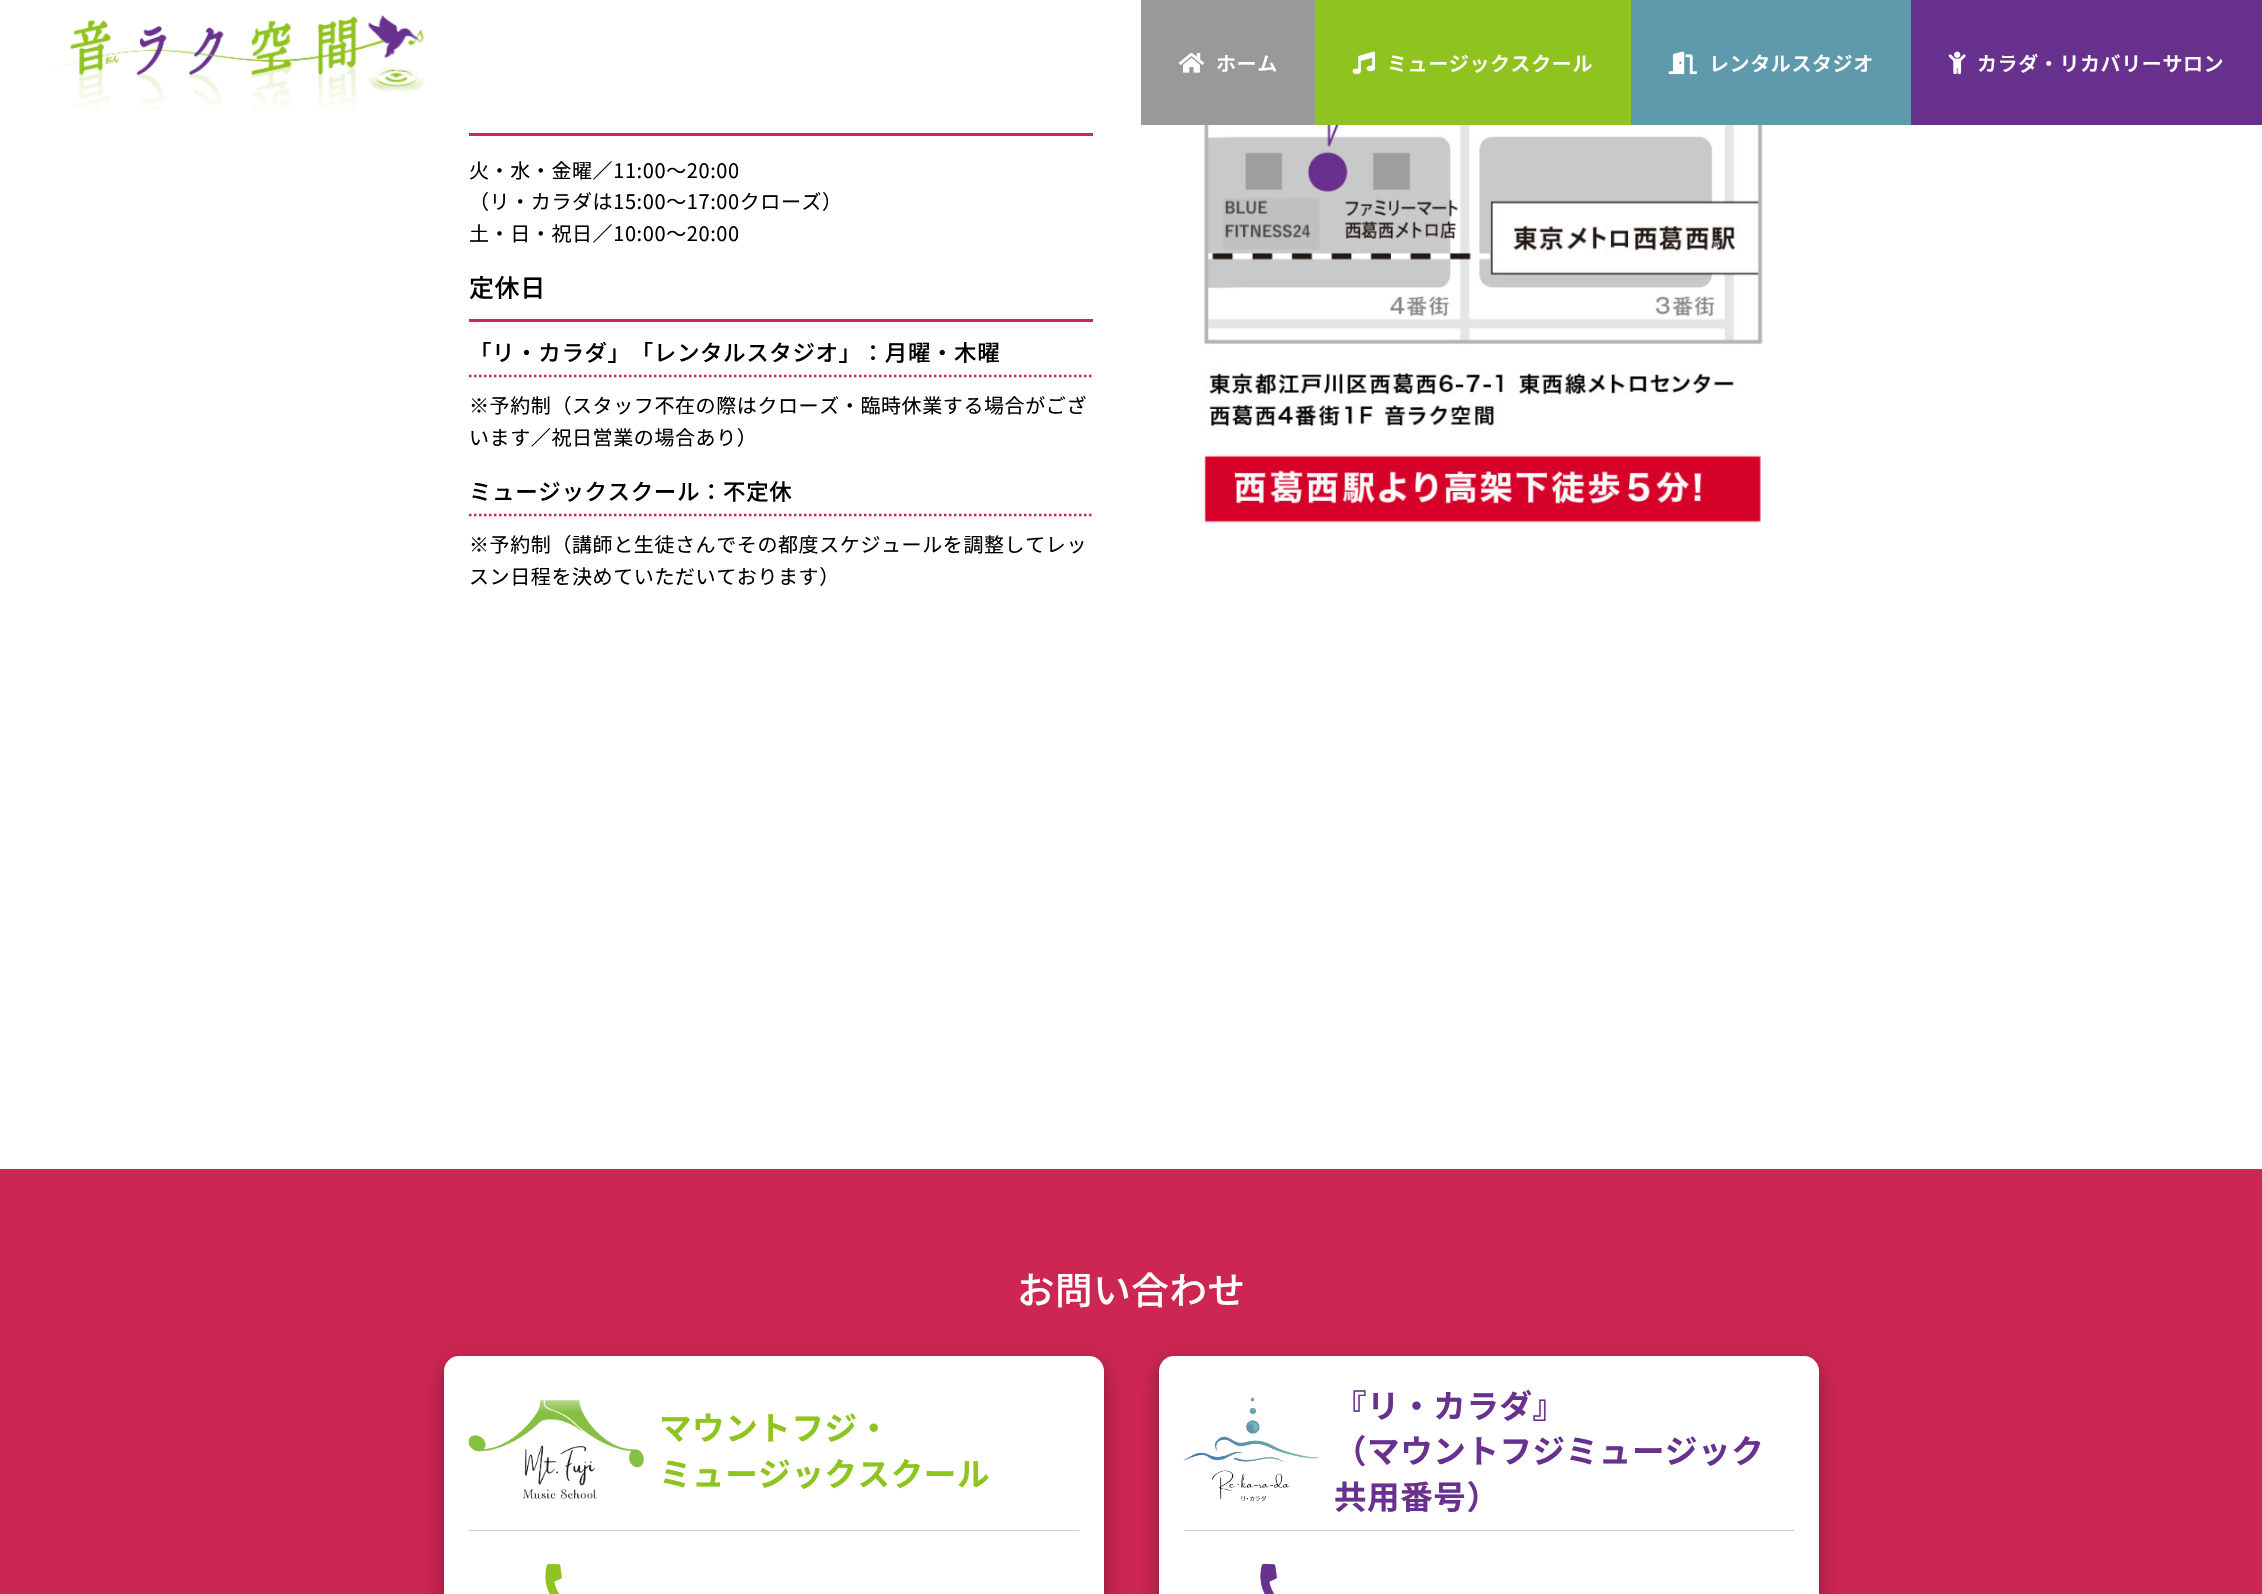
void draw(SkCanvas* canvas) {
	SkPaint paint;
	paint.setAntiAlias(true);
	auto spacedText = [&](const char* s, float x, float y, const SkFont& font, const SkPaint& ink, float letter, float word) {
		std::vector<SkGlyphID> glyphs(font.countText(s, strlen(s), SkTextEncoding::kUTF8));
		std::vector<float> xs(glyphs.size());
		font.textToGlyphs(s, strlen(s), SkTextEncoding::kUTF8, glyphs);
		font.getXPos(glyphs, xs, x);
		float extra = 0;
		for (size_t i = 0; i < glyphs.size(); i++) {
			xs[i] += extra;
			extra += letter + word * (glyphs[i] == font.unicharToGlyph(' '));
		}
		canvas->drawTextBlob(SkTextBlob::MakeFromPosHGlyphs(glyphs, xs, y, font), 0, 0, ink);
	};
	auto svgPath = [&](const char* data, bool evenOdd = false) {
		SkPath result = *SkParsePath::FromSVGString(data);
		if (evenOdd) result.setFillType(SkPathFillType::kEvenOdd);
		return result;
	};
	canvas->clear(0xffffffff);
	canvas->drawImageRect(SkImages::DeferredFromEncodedData(SkData::MakeFromFileName("img1.png")), SkRect::MakeXYWH(52, 15, 373, 95), SkSamplingOptions());
	paint.setColor(0xff999999);
	canvas->drawRect(SkRect::MakeXYWH(1141, 0, 174, 125), paint);
	canvas->drawImageRect(SkImages::DeferredFromEncodedData(SkData::MakeFromFileName("img2.png")), SkRect::MakeXYWH(1178, 53, 26, 20), SkSamplingOptions());
	SkFont f1(fontMgr->matchFamilyStyle("Noto Sans JP", SkFontStyle(600, SkFontStyle::kNormal_Width, SkFontStyle::kUpright_Slant)), 20);
	f1.setSubpixel(true);
	paint.setColor(0xffffffff);
	spacedText("ホーム", 1216, 71, f1, paint, 0.6, 0);
	paint.setColor(0xff8fc31f);
	canvas->drawRect(SkRect::MakeXYWH(1315, 0, 316, 125), paint);
	canvas->drawImageRect(SkImages::DeferredFromEncodedData(SkData::MakeFromFileName("img3.png")), SkRect::MakeXYWH(1352, 51, 23, 24), SkSamplingOptions());
	paint.setColor(0xffffffff);
	spacedText("ミュージックスクール", 1387, 71, f1, paint, 0.6, 0);
	paint.setColor(0xff5f9aac);
	canvas->drawRect(SkRect::MakeXYWH(1631, 0, 280, 125), paint);
	canvas->drawImageRect(SkImages::DeferredFromEncodedData(SkData::MakeFromFileName("img4.png")), SkRect::MakeXYWH(1668, 51, 29, 24), SkSamplingOptions());
	paint.setColor(0xffffffff);
	spacedText("レンタルスタジオ", 1709, 71, f1, paint, 0.6, 0);
	paint.setColor(0xff69318e);
	canvas->drawRect(SkRect::MakeXYWH(1911, 0, 351, 125), paint);
	canvas->drawImageRect(SkImages::DeferredFromEncodedData(SkData::MakeFromFileName("img5.png")), SkRect::MakeXYWH(1948, 51, 18, 24), SkSamplingOptions());
	paint.setColor(0xffffffff);
	spacedText("カラダ・リカバリーサロン", 1977, 71, f1, paint, 0.6, 0);
	paint.setColor(0xffcd2653);
	canvas->drawRect(SkRect::MakeXYWH(469, 133, 624, 3), paint);
	SkFont f2(fontMgr->matchFamilyStyle("Noto Sans JP", SkFontStyle::Normal()), 20);
	f2.setSubpixel(true);
	paint.setColor(0xff000000);
	spacedText("火・水・金曜／11:00〜20:00", 469, 178, f2, paint, 0.6, 0);
	spacedText("（リ・カラダは15:00〜17:00クローズ）", 469, 209, f2, paint, 0.6, 0);
	spacedText("土・日・祝日／10:00〜20:00", 469, 241, f2, paint, 0.6, 0);
	paint.setColor(0xffcd2653);
	canvas->drawRect(SkRect::MakeXYWH(469, 319, 624, 3), paint);
	SkFont f3(fontMgr->matchFamilyStyle("Noto Sans JP", SkFontStyle(500, SkFontStyle::kNormal_Width, SkFontStyle::kUpright_Slant)), 25);
	f3.setSubpixel(true);
	paint.setColor(0xff000000);
	spacedText("定休日", 469, 297, f3, paint, 0.6, 0);
	paint.setStroke(true);
	paint.setStrokeWidth(2.5);
	paint.setColor(0xffcd2653);
	paint.setPathEffect(SkDashPathEffect::Make({{2.5f, 2.5f}}, 0));
	canvas->drawPath(svgPath("M469 376H1092.5"), paint);
	paint.setPathEffect(nullptr);
	SkFont f4(fontMgr->matchFamilyStyle("Noto Sans JP", SkFontStyle(500, SkFontStyle::kNormal_Width, SkFontStyle::kUpright_Slant)), 22.5);
	f4.setSubpixel(true);
	paint.setStroke(false);
	paint.setColor(0xff000000);
	spacedText("「リ・カラダ」「レンタルスタジオ」：月曜・木曜", 469, 361, f4, paint, 0.6, 0);
	spacedText("※予約制（スタッフ不在の際はクローズ・臨時休業する場合がござ", 469, 413, f2, paint, 0.6, 0);
	spacedText("います／祝日営業の場合あり）", 469, 445, f2, paint, 0.6, 0);
	paint.setStroke(true);
	paint.setColor(0xffcd2653);
	paint.setPathEffect(SkDashPathEffect::Make({{2.5f, 2.5f}}, 0));
	canvas->drawPath(svgPath("M469 515H1092.5"), paint);
	paint.setPathEffect(nullptr);
	paint.setStroke(false);
	paint.setColor(0xff000000);
	spacedText("ミュージックスクール：不定休", 469, 500, f4, paint, 0.6, 0);
	spacedText("※予約制（講師と生徒さんでその都度スケジュールを調整してレッ", 469, 552, f2, paint, 0.6, 0);
	spacedText("スン日程を決めていただいております）", 469, 584, f2, paint, 0.6, 0);
	canvas->drawImageRect(SkImages::DeferredFromEncodedData(SkData::MakeFromFileName("img6.png")), SkRect::MakeXYWH(1199, 125, 564, 399), SkSamplingOptions());
	paint.setColor(0xffcd2653);
	canvas->drawRect(SkRect::MakeXYWH(0, 1169, 2262, 425), paint);
	SkFont f5(fontMgr->matchFamilyStyle("Noto Sans JP", SkFontStyle(500, SkFontStyle::kNormal_Width, SkFontStyle::kUpright_Slant)), 37.5);
	f5.setSubpixel(true);
	paint.setColor(0xffffffff);
	spacedText("お問い合わせ", 1017, 1304, f5, paint, 0.6, 0);
	paint.setColor(0x59000000);
	paint.setMaskFilter(SkMaskFilter::MakeBlur(kNormal_SkBlurStyle, 9.5));
	canvas->drawRoundRect(SkRect::MakeXYWH(444, 1363, 660, 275), 15, 15, paint);
	paint.setMaskFilter(nullptr);
	paint.setColor(0xffffffff);
	canvas->drawRoundRect(SkRect::MakeXYWH(444, 1356, 660, 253), 15, 15, paint);
	paint.setColor(0xffcccccc);
	canvas->drawRect(SkRect::MakeXYWH(469, 1530, 610, 1), paint);
	canvas->drawImageRect(SkImages::DeferredFromEncodedData(SkData::MakeFromFileName("img7.png")), SkRect::MakeXYWH(468, 1400, 176, 99), SkSamplingOptions());
	SkFont f6(fontMgr->matchFamilyStyle("Noto Sans JP", SkFontStyle::Bold()), 32.5);
	f6.setSubpixel(true);
	paint.setColor(0xff8fc31f);
	spacedText("マウントフジ・", 659, 1440, f6, paint, 0.6, 0);
	spacedText("ミュージックスクール", 659, 1486, f6, paint, 0.6, 0);
	canvas->drawImageRect(SkImages::DeferredFromEncodedData(SkData::MakeFromFileName("img8.png")), SkRect::MakeXYWH(545, 1563, 17, 31), SkSamplingOptions());
	paint.setColor(0x59000000);
	paint.setMaskFilter(SkMaskFilter::MakeBlur(kNormal_SkBlurStyle, 9.5));
	canvas->drawRoundRect(SkRect::MakeXYWH(1159, 1363, 660, 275), 15, 15, paint);
	paint.setMaskFilter(nullptr);
	paint.setColor(0xffffffff);
	canvas->drawRoundRect(SkRect::MakeXYWH(1159, 1356, 660, 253), 15, 15, paint);
	paint.setColor(0xffcccccc);
	canvas->drawRect(SkRect::MakeXYWH(1184, 1530, 610, 1), paint);
	canvas->drawImageRect(SkImages::DeferredFromEncodedData(SkData::MakeFromFileName("img9.png")), SkRect::MakeXYWH(1183, 1397, 136, 105), SkSamplingOptions());
	paint.setColor(0xff69318e);
	spacedText("『リ・カラダ』", 1334, 1418, f6, paint, 0.6, 0);
	spacedText("（マウントフジミュージック", 1334, 1463, f6, paint, 0.6, 0);
	spacedText("共用番号）", 1334, 1509, f6, paint, 0.6, 0);
	canvas->drawImageRect(SkImages::DeferredFromEncodedData(SkData::MakeFromFileName("img10.png")), SkRect::MakeXYWH(1260, 1563, 17, 31), SkSamplingOptions());
}
